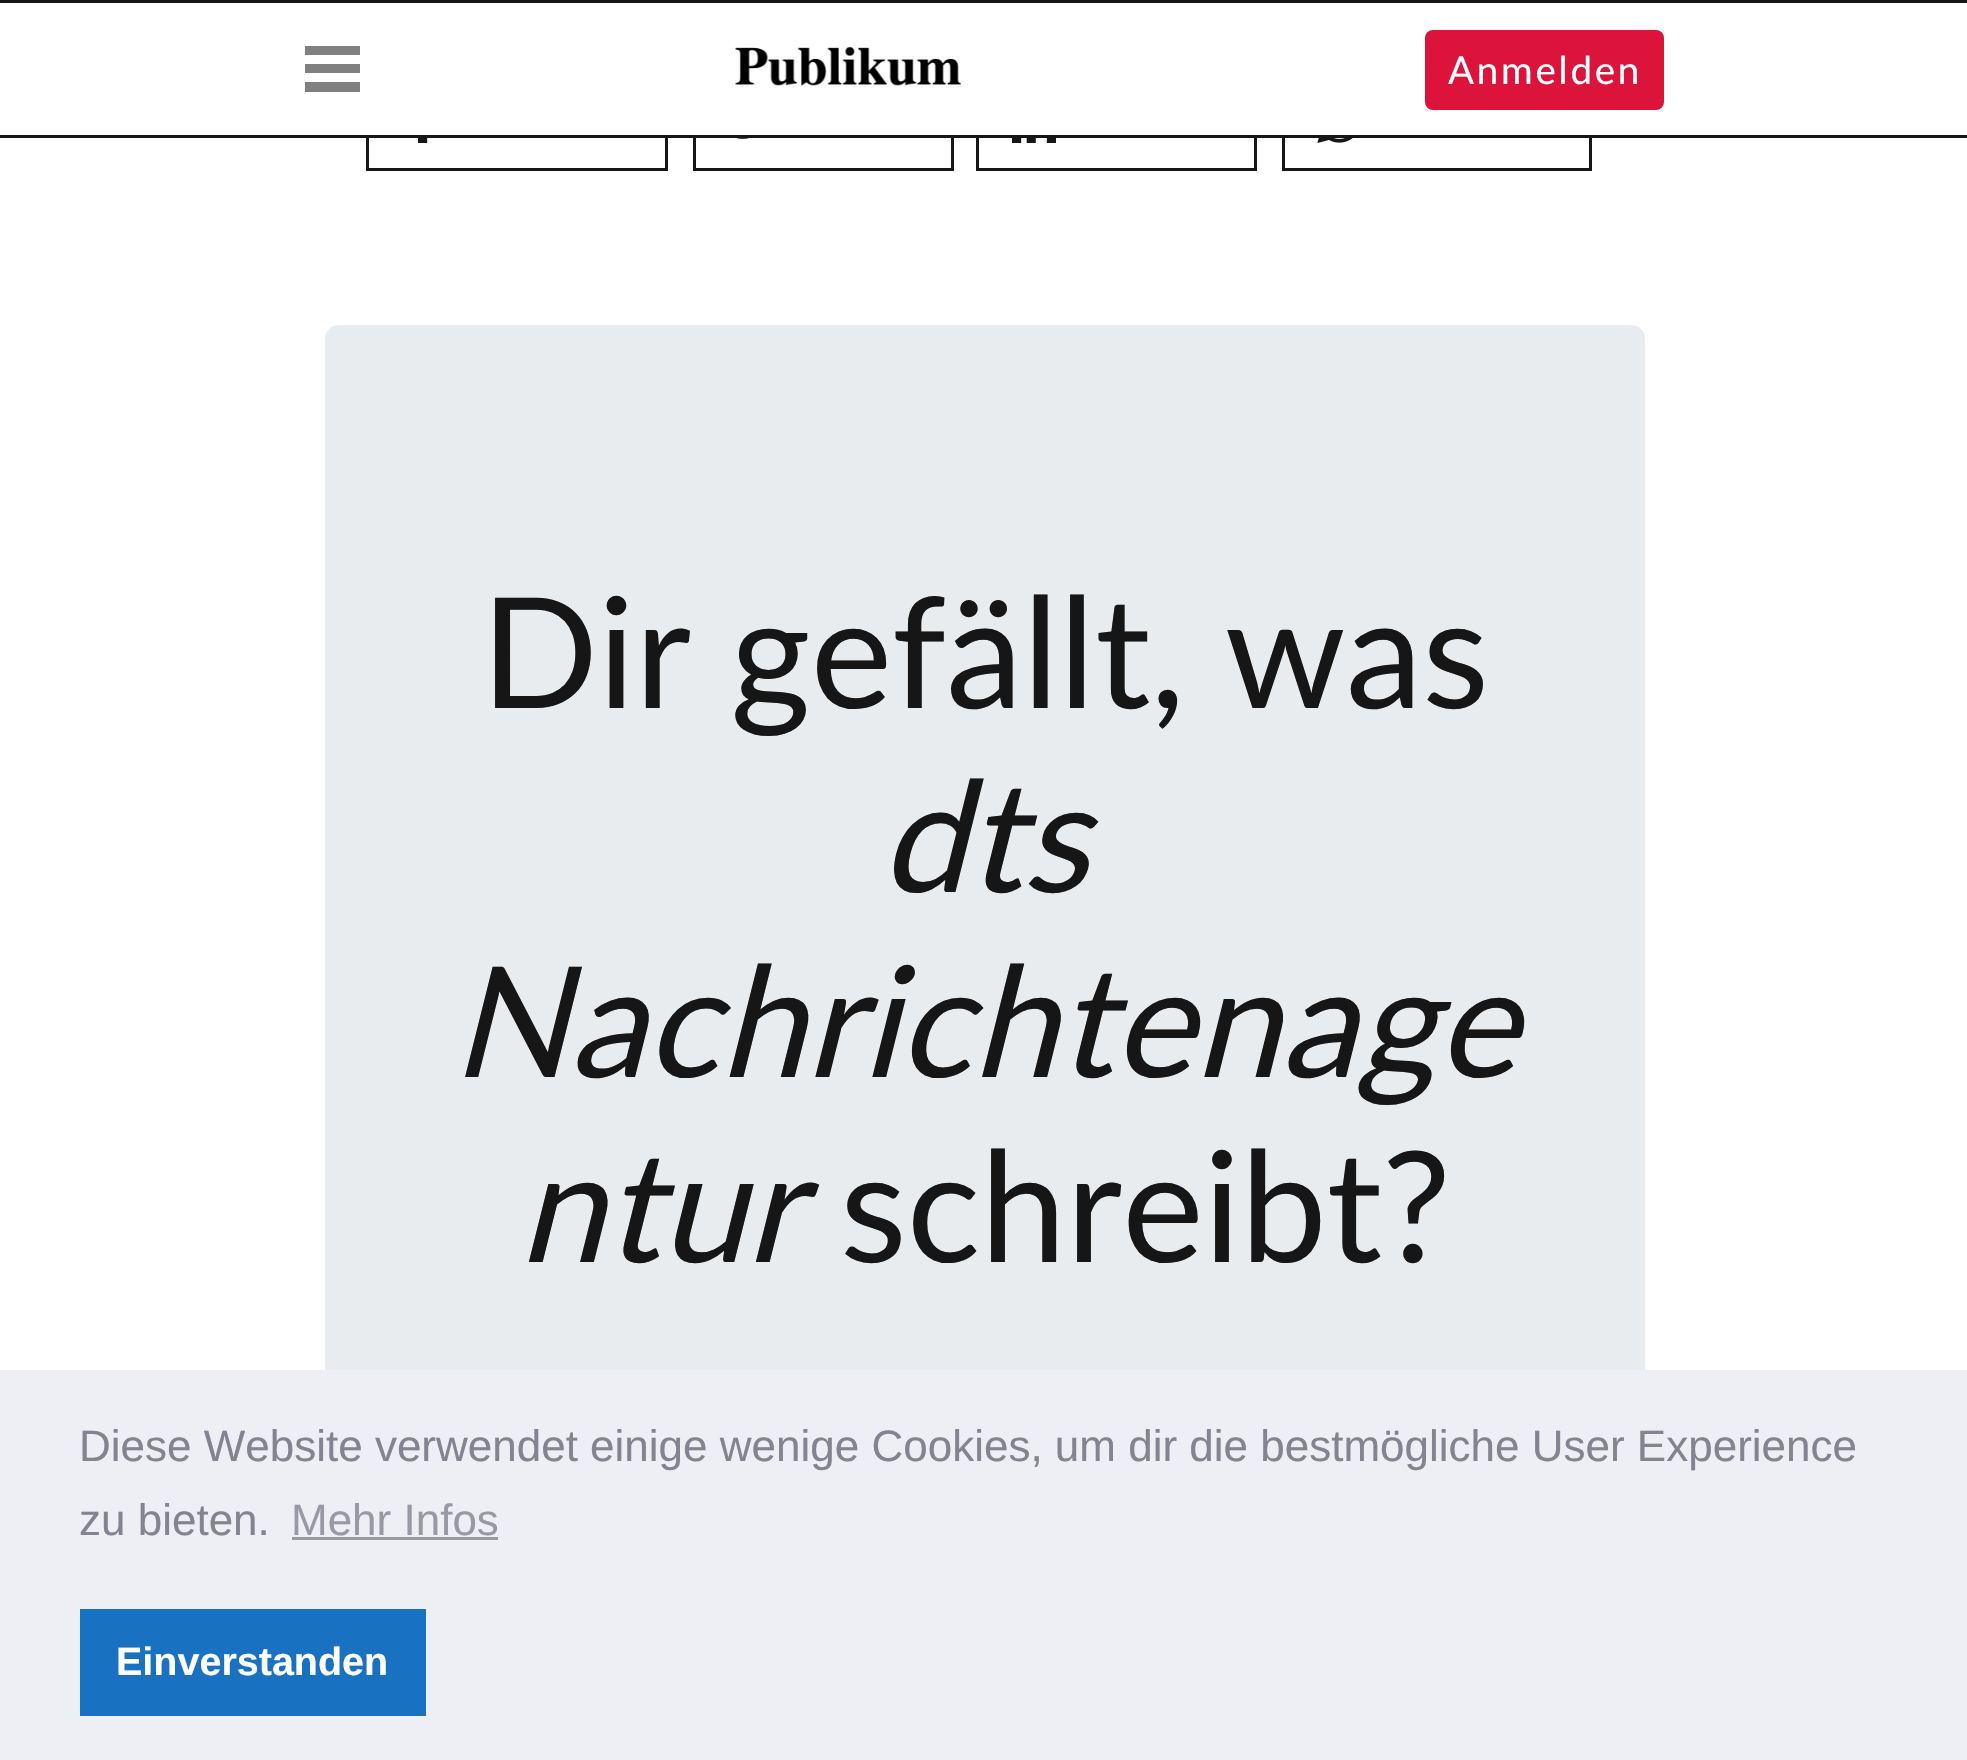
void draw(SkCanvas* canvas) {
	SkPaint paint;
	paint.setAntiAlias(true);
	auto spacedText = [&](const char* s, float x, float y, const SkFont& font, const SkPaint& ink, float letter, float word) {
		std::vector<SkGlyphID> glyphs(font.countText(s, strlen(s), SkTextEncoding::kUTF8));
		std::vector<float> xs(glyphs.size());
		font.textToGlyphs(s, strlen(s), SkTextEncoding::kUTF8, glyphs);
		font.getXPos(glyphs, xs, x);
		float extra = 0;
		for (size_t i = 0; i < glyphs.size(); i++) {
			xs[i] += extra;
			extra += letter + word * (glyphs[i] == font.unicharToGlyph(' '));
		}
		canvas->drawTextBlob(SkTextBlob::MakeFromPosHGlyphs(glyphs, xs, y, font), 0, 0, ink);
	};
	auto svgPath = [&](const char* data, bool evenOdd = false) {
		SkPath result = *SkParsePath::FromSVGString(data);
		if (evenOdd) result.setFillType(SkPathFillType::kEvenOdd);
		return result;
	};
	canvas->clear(0xffffffff);
	paint.setStroke(true);
	paint.setStrokeWidth(3);
	paint.setColor(0xff161616);
	canvas->drawRect(SkRect::MakeXYWH(367.5, 73.5, 299, 96), paint);
	canvas->drawRect(SkRect::MakeXYWH(694.5, 73.5, 258, 96), paint);
	canvas->drawRect(SkRect::MakeXYWH(977.5, 73.5, 278, 96), paint);
	canvas->drawRect(SkRect::MakeXYWH(1283.5, 73.5, 307, 96), paint);
	paint.setStroke(false);
	paint.setColor(0xffffffff);
	canvas->drawRect(SkRect::MakeXYWH(366, 72, 1226, 63), paint);
	paint.setColor(0xff161616);
	canvas->drawRect(SkRect::MakeXYWH(0, 0, 1967, 3), paint);
	canvas->drawRect(SkRect::MakeXYWH(0, 135, 1967, 3), paint);
	paint.setColor(0xff808080);
	canvas->drawPath(svgPath("M360 55H305V46H360ZM360 64H305V73H360ZM360 82H305V92H360Z"), paint);
	canvas->drawImageRect(SkImages::DeferredFromEncodedData(SkData::MakeFromFileName("img1.png")), SkRect::MakeXYWH(735, 46, 227, 40), SkSamplingOptions());
	paint.setColor(0xffdc143c);
	canvas->drawRoundRect(SkRect::MakeXYWH(1425, 30, 239, 80), 8, 8, paint);
	SkFont f1(fontMgr->matchFamilyStyle("Lato", SkFontStyle::Normal()), 38.5);
	f1.setSubpixel(true);
	paint.setColor(0xffffffff);
	spacedText("Anmelden", 1448, 84, f1, paint, 2.75, 0);
	canvas->drawImageRect(SkImages::DeferredFromEncodedData(SkData::MakeFromFileName("img2.png")), SkRect::MakeXYWH(418, 138, 10, 5), SkSamplingOptions());
	canvas->drawImageRect(SkImages::DeferredFromEncodedData(SkData::MakeFromFileName("img3.png")), SkRect::MakeXYWH(736, 138, 13, 1), SkSamplingOptions());
	canvas->drawImageRect(SkImages::DeferredFromEncodedData(SkData::MakeFromFileName("img4.png")), SkRect::MakeXYWH(1012, 138, 44, 5), SkSamplingOptions());
	canvas->drawImageRect(SkImages::DeferredFromEncodedData(SkData::MakeFromFileName("img5.png")), SkRect::MakeXYWH(1317, 138, 36, 5), SkSamplingOptions());
	paint.setColor(0xffe9ecef);
	canvas->drawRoundRect(SkRect::MakeXYWH(325, 325, 1320, 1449), 14, 14, paint);
	SkFont f2(fontMgr->matchFamilyStyle("Lato", SkFontStyle::Normal()), 154);
	f2.setSubpixel(true);
	paint.setColor(0xff161616);
	canvas->drawString("Dir gefällt, was", 481, 708, f2, paint);
	SkFont f3(fontMgr->matchFamilyStyle("Lato", SkFontStyle::Italic()), 154);
	f3.setSubpixel(true);
	canvas->drawString("dts", 880, 892, f3, paint);
	canvas->drawString("Nachrichtenage", 451, 1077, f3, paint);
	canvas->drawString("ntur", 518, 1262, f3, paint);
	canvas->drawString("schreibt?", 840, 1262, f2, paint);
	paint.setColor(0xffedeff5);
	canvas->drawRect(SkRect::MakeXYWH(0, 1370, 1967, 390), paint);
	SkFont f4(fontMgr->matchFamilyStyle("Liberation Sans", SkFontStyle::Normal()), 44);
	f4.setSubpixel(true);
	paint.setColor(0xff838391);
	canvas->drawString("Diese Website verwendet einige wenige Cookies, um dir die bestmögliche User Experience", 79, 1461, f4, paint);
	canvas->drawString("zu bieten.", 79, 1535, f4, paint);
	paint.setColor(0xff9899a5);
	canvas->drawString("Mehr Infos", 291, 1535, f4, paint);
	canvas->drawRect(SkRect::MakeXYWH(292, 1537, 206, 3), paint);
	paint.setColor(0xff1971c2);
	canvas->drawRect(SkRect::MakeXYWH(80, 1609, 346, 107), paint);
	SkFont f5(fontMgr->matchFamilyStyle("Liberation Sans", SkFontStyle::Bold()), 39.5);
	f5.setSubpixel(true);
	paint.setColor(0xffffffff);
	canvas->drawString("Einverstanden", 116, 1675, f5, paint);
}
